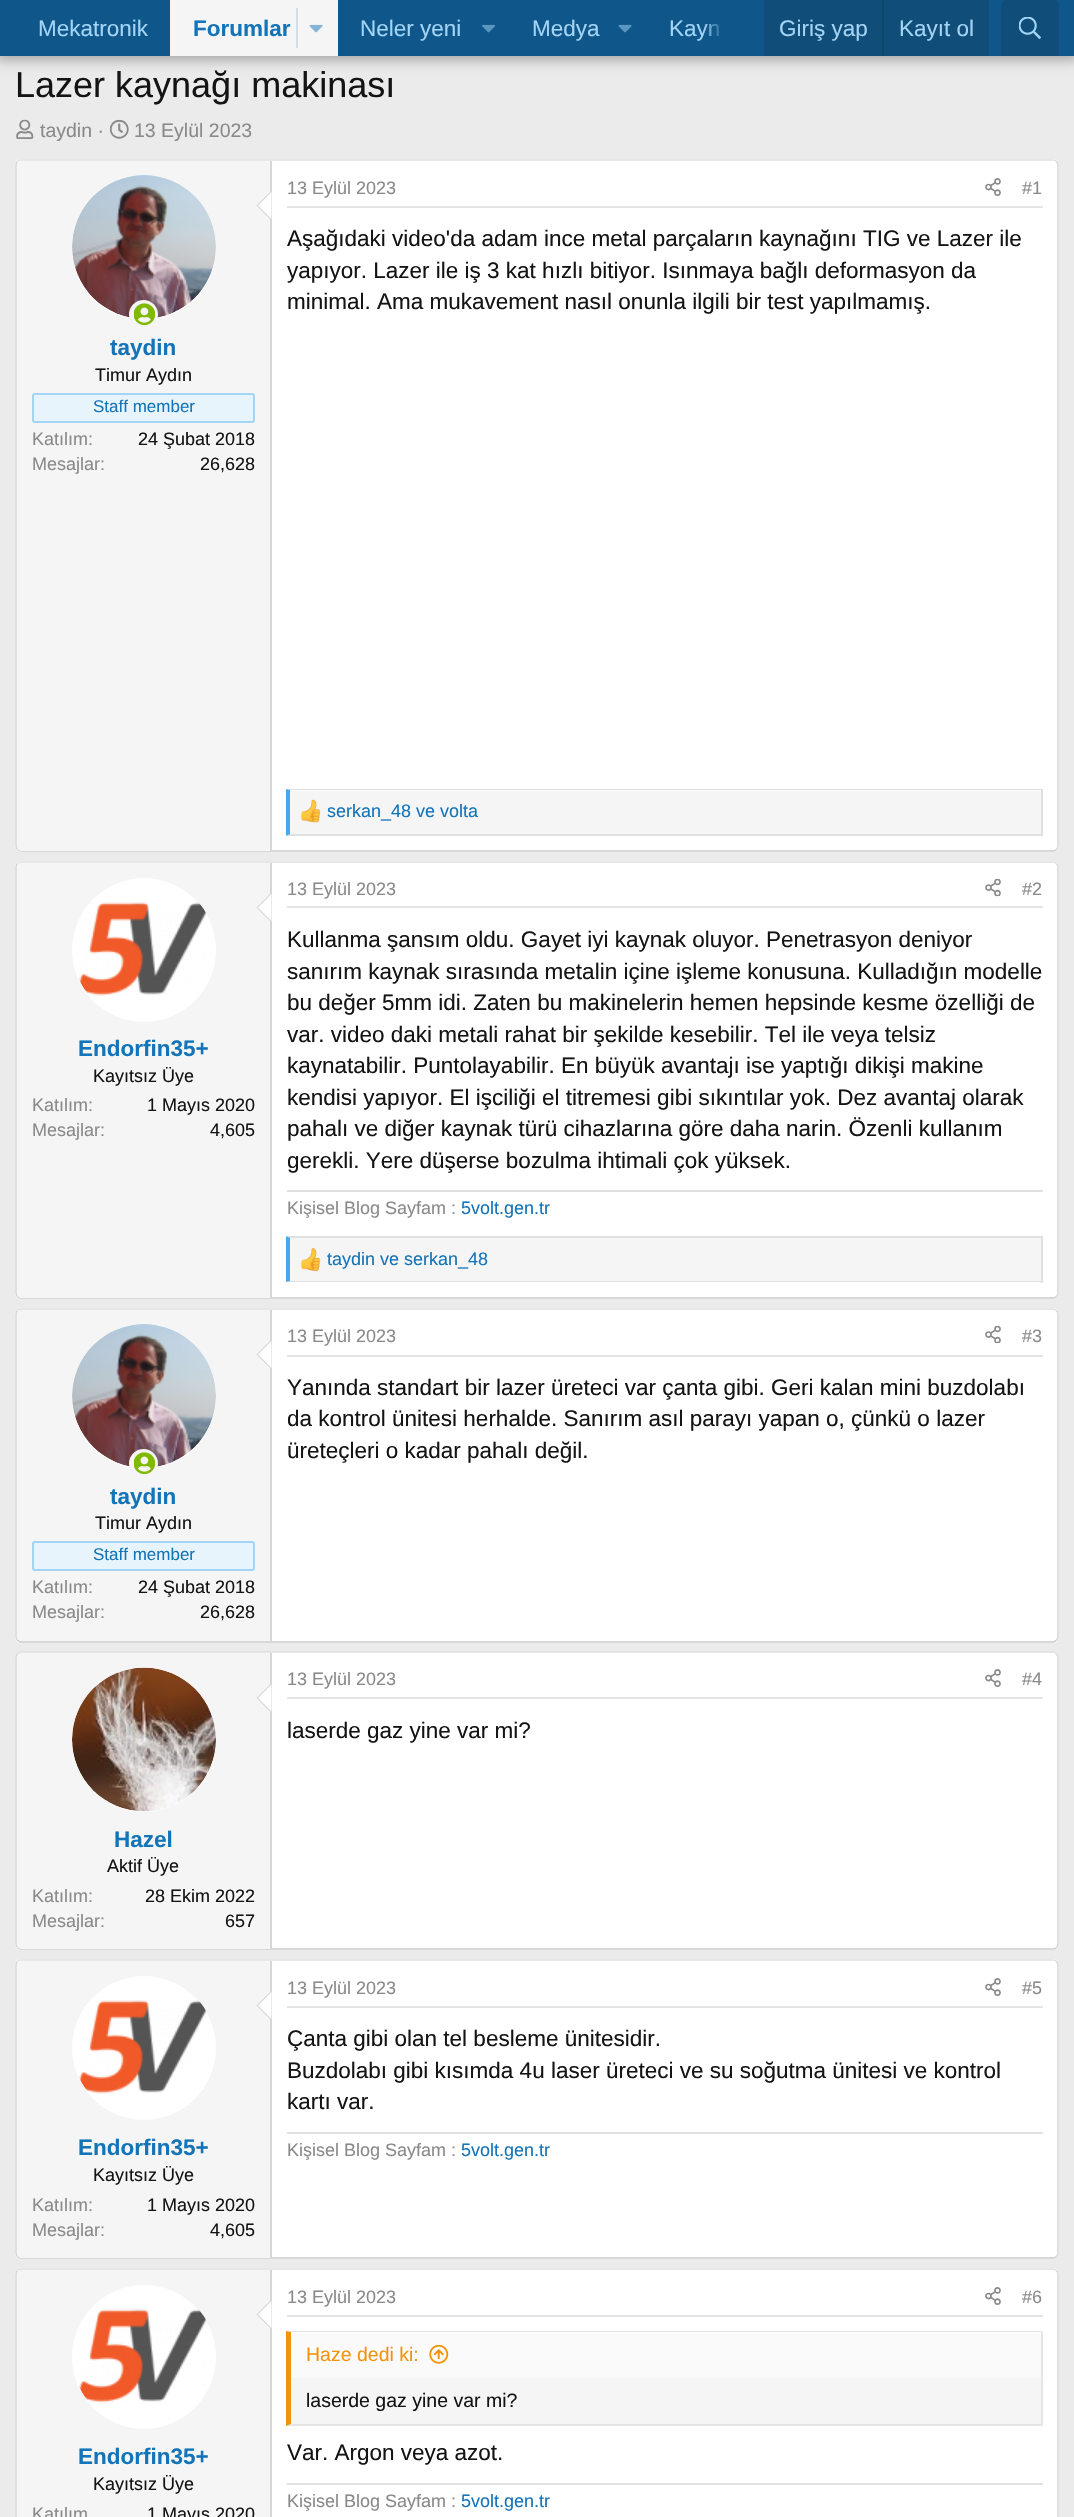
void draw(SkCanvas* canvas) {
	SkPaint paint;
	paint.setAntiAlias(true);
	auto svgPath = [&](const char* data, bool evenOdd = false) {
		SkPath result = *SkParsePath::FromSVGString(data);
		if (evenOdd) result.setFillType(SkPathFillType::kEvenOdd);
		return result;
	};
	canvas->clear(0xffebebeb);
	paint.setColor(0x4d000000);
	paint.setMaskFilter(SkMaskFilter::MakeBlur(kNormal_SkBlurStyle, 6));
	canvas->drawRect(SkRect::MakeXYWH(-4, -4, 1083, 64), paint);
	paint.setMaskFilter(nullptr);
	paint.setColor(0xff0f578a);
	canvas->drawRect(SkRect::MakeXYWH(0, 0, 1074, 56), paint);
	SkFont f1(fontMgr->matchFamilyStyle("Liberation Sans", SkFontStyle::Normal()), 22.5);
	f1.setSubpixel(true);
	paint.setColor(0xffa3d4f5);
	canvas->drawString("Mekatronik", 38, 36, f1, paint);
	paint.setColor(0xfff5f5f5);
	canvas->drawRect(SkRect::MakeXYWH(170, 0, 168, 56), paint);
	SkFont f2(fontMgr->matchFamilyStyle("Liberation Sans", SkFontStyle::Bold()), 22.5);
	f2.setSubpixel(true);
	paint.setColor(0xff1474b8);
	canvas->drawString("Forumlar", 193, 36, f2, paint);
	paint.setColor(0xffcedfeb);
	canvas->drawRect(SkRect::MakeXYWH(296, 8, 2, 40), paint);
	canvas->drawImageRect(SkImages::DeferredFromEncodedData(SkData::MakeFromFileName("img1.png")), SkRect::MakeXYWH(309, 24, 14, 9), SkSamplingOptions());
	paint.setColor(0xffa3d4f5);
	canvas->drawString("Neler yeni", 360, 36, f1, paint);
	canvas->drawImageRect(SkImages::DeferredFromEncodedData(SkData::MakeFromFileName("img2.png")), SkRect::MakeXYWH(482, 24, 13, 9), SkSamplingOptions());
	canvas->drawString("Medya", 532, 36, f1, paint);
	canvas->drawImageRect(SkImages::DeferredFromEncodedData(SkData::MakeFromFileName("img3.png")), SkRect::MakeXYWH(618, 24, 14, 9), SkSamplingOptions());
	canvas->drawString("Kayn", 669, 36, f1, paint);
	{
		const SkColor colors[] = {0x000f578a, 0xff0f578a};
		const float stops[] = {0, 0.33};
		const SkPoint ends[] = {{704, 28}, {764, 28}};
		paint.setShader(SkGradientShader::MakeLinear(ends, colors, stops, 2, SkTileMode::kClamp));
		paint.setAlpha(255);
	}
	canvas->drawRect(SkRect::MakeXYWH(704, 23, 16, 13), paint);
	paint.setShader(nullptr);
	paint.setColor(0xff104d78);
	canvas->drawRect(SkRect::MakeXYWH(764, 0, 225, 56), paint);
	paint.setColor(0xffa3d4f5);
	canvas->drawString("Giriş yap", 779, 36, f1, paint);
	paint.setColor(0xff114469);
	canvas->drawRect(SkRect::MakeXYWH(882, 0, 2, 56), paint);
	paint.setColor(0xffa3d4f5);
	canvas->drawString("Kayıt ol", 899, 36, f1, paint);
	paint.setColor(0xff104d78);
	canvas->drawPath(svgPath("M1007 0H1053C1056.5 0 1059 2.5 1059 6V56H1001V6C1001 2.5 1003.5 0 1007 0Z"), paint);
	canvas->drawImageRect(SkImages::DeferredFromEncodedData(SkData::MakeFromFileName("img4.png")), SkRect::MakeXYWH(1019, 17, 22, 22), SkSamplingOptions());
	SkFont f3(fontMgr->matchFamilyStyle("Liberation Sans", SkFontStyle::Normal()), 36);
	f3.setSubpixel(true);
	paint.setColor(0xff141414);
	canvas->drawString("Lazer kaynağı makinası", 15, 97, f3, paint);
	canvas->drawImageRect(SkImages::DeferredFromEncodedData(SkData::MakeFromFileName("img5.png")), SkRect::MakeXYWH(16, 119, 18, 20), SkSamplingOptions());
	SkFont f4(fontMgr->matchFamilyStyle("Liberation Sans", SkFontStyle::Normal()), 19.5);
	f4.setSubpixel(true);
	paint.setColor(0xff8a8a8a);
	canvas->drawString("taydin ·", 40, 137, f4, paint);
	canvas->drawImageRect(SkImages::DeferredFromEncodedData(SkData::MakeFromFileName("img6.png")), SkRect::MakeXYWH(109, 119, 20, 20), SkSamplingOptions());
	canvas->drawString("13 Eylül 2023", 134, 137, f4, paint);
	paint.setColor(0xffffffff);
	canvas->drawRoundRect(SkRect::MakeXYWH(15, 159, 1044, 693), 6, 6, paint);
	paint.setStroke(true);
	paint.setStrokeWidth(1.5);
	paint.setColor(0xffe0e0e0);
	canvas->drawPath(svgPath("M17.5 161.5C18.5 160.5 19.5 160 21 160H1053C1054.5 160 1055.5 160.5 1056.5 161.5"), paint);
	paint.setColor(0xffd6d6d6);
	canvas->drawPath(svgPath("M1056.5 161.5C1057.5 162.5 1058 163.5 1058 165V846C1058 847.5 1057.5 848.5 1056.5 849.5"), paint);
	paint.setColor(0xffcccccc);
	canvas->drawPath(svgPath("M1056.5 849.5C1055.5 850.5 1054.5 851 1053 851H21C19.5 851 18.5 850.5 17.5 849.5"), paint);
	paint.setColor(0xffd6d6d6);
	canvas->drawPath(svgPath("M17.5 849.5C16.5 848.5 16 847.5 16 846V165C16 163.5 16.5 162.5 17.5 161.5"), paint);
	paint.setStroke(false);
	paint.setColor(0xfff5f5f5);
	canvas->drawPath(svgPath("M22 161H272V851H22C19 851 17 849 17 846V166C17 163 19 161 22 161Z"), paint);
	paint.setColor(0xffd6d6d6);
	canvas->drawRect(SkRect::MakeXYWH(270, 161, 2, 690), paint);
	paint.setColor(0xffffffff);
	canvas->drawCircle(144, 248, 72, paint);
	canvas->drawImageRect(SkImages::DeferredFromEncodedData(SkData::MakeFromFileName("img7.png")), SkRect::MakeXYWH(72, 175, 144, 143), SkSamplingOptions());
	paint.setColor(0xfff5f5f5);
	canvas->drawCircle(143.5, 314.5, 14.5, paint);
	canvas->drawImageRect(SkImages::DeferredFromEncodedData(SkData::MakeFromFileName("img8.png")), SkRect::MakeXYWH(134, 303, 21, 23), SkSamplingOptions());
	paint.setColor(0xffd6d6d6);
	canvas->drawPath(svgPath("M271.5 190.5V220.5L256.5 205.5Z"), paint);
	paint.setColor(0xffffffff);
	canvas->drawPath(svgPath("M271.5 192V219L258 205.5Z"), paint);
	paint.setColor(0xff1474b8);
	canvas->drawString("taydin", 110, 355, f2, paint);
	SkFont f5(fontMgr->matchFamilyStyle("Liberation Sans", SkFontStyle::Normal()), 18);
	f5.setSubpixel(true);
	paint.setColor(0xff141414);
	canvas->drawString("Timur Aydın", 95, 381, f5, paint);
	paint.setColor(0xffe8f4fc);
	canvas->drawRoundRect(SkRect::MakeXYWH(33, 394, 221, 28), 2, 2, paint);
	paint.setStroke(true);
	paint.setStrokeWidth(2);
	paint.setColor(0xffa3d4f5);
	canvas->drawRoundRect(SkRect::MakeXYWH(33, 394, 221, 28), 2, 2, paint);
	SkFont f6(fontMgr->matchFamilyStyle("Liberation Sans", SkFontStyle::Normal()), 17);
	f6.setSubpixel(true);
	paint.setStroke(false);
	paint.setColor(0xff1474b8);
	canvas->drawString("Staff member", 93, 412, f6, paint);
	paint.setColor(0xff8a8a8a);
	canvas->drawString("Katılım:", 32, 445, f5, paint);
	paint.setColor(0xff141414);
	canvas->drawString("24 Şubat 2018", 138, 445, f5, paint);
	paint.setColor(0xff8a8a8a);
	canvas->drawString("Mesajlar:", 32, 470, f5, paint);
	paint.setColor(0xff141414);
	canvas->drawString("26,628", 200, 470, f5, paint);
	paint.setColor(0xffe5e5e5);
	canvas->drawRect(SkRect::MakeXYWH(287, 206, 756, 2), paint);
	paint.setColor(0xff8a8a8a);
	canvas->drawString("13 Eylül 2023", 287, 194, f5, paint);
	canvas->drawImageRect(SkImages::DeferredFromEncodedData(SkData::MakeFromFileName("img9.png")), SkRect::MakeXYWH(985, 178, 16, 18), SkSamplingOptions());
	canvas->drawString("#1", 1022, 194, f5, paint);
	paint.setColor(0xff141414);
	canvas->drawString("Aşağıdaki video'da adam ince metal parçaların kaynağını TIG ve Lazer ile", 287, 246, f1, paint);
	canvas->drawString("yapıyor. Lazer ile iş 3 kat hızlı bitiyor. Isınmaya bağlı deformasyon da", 287, 278, f1, paint);
	canvas->drawString("minimal. Ama mukavement nasıl onunla ilgili bir test yapılmamış.", 287, 309, f1, paint);
	paint.setColor(0xfff5f5f5);
	canvas->drawRect(SkRect::MakeXYWH(290, 791, 751, 43), paint);
	paint.setColor(0xffe0e0e0);
	canvas->drawPath(svgPath("M286 789H1042L1041 790H290Z"), paint);
	canvas->drawRect(SkRect::MakeXYWH(1041, 789, 2, 47), paint);
	canvas->drawPath(svgPath("M1042 836H286L290 834H1041Z"), paint);
	paint.setColor(0xff47a7eb);
	canvas->drawPath(svgPath("M286 836V789L290 790V834Z"), paint);
	canvas->drawImageRect(SkImages::DeferredFromEncodedData(SkData::MakeFromFileName("img10.png")), SkRect::MakeXYWH(300, 799, 21, 24), SkSamplingOptions());
	paint.setColor(0xff1474b8);
	canvas->drawString("serkan_48 ve volta", 327, 817, f5, paint);
	paint.setColor(0xffffffff);
	canvas->drawRoundRect(SkRect::MakeXYWH(15, 861, 1044, 438), 6, 6, paint);
	paint.setStroke(true);
	paint.setStrokeWidth(1.5);
	paint.setColor(0xffe0e0e0);
	canvas->drawPath(svgPath("M17.5 863.5C18.5 862.5 19.5 862 21 862H1053C1054.5 862 1055.5 862.5 1056.5 863.5"), paint);
	paint.setColor(0xffd6d6d6);
	canvas->drawPath(svgPath("M1056.5 863.5C1057.5 864.5 1058 865.5 1058 867V1293C1058 1294.5 1057.5 1295.5 1056.5 1296.5"), paint);
	paint.setColor(0xffcccccc);
	canvas->drawPath(svgPath("M1056.5 1296.5C1055.5 1297.5 1054.5 1298 1053 1298H21C19.5 1298 18.5 1297.5 17.5 1296.5"), paint);
	paint.setColor(0xffd6d6d6);
	canvas->drawPath(svgPath("M17.5 1296.5C16.5 1295.5 16 1294.5 16 1293V867C16 865.5 16.5 864.5 17.5 863.5"), paint);
	paint.setStroke(false);
	paint.setColor(0xfff5f5f5);
	canvas->drawPath(svgPath("M22 863H272V1298H22C19 1298 17 1296 17 1293V868C17 865 19 863 22 863Z"), paint);
	paint.setColor(0xffd6d6d6);
	canvas->drawRect(SkRect::MakeXYWH(270, 863, 2, 435), paint);
	paint.setColor(0xffffffff);
	canvas->drawCircle(144, 950, 72, paint);
	canvas->drawImageRect(SkImages::DeferredFromEncodedData(SkData::MakeFromFileName("img11.png")), SkRect::MakeXYWH(79, 902, 128, 94), SkSamplingOptions());
	paint.setColor(0xffd6d6d6);
	canvas->drawPath(svgPath("M271.5 892.5V922.5L256.5 907.5Z"), paint);
	paint.setColor(0xffffffff);
	canvas->drawPath(svgPath("M271.5 894V921L258 907.5Z"), paint);
	paint.setColor(0xff1474b8);
	canvas->drawString("Endorfin35+", 78, 1056, f2, paint);
	paint.setColor(0xff141414);
	canvas->drawString("Kayıtsız Üye", 93, 1082, f5, paint);
	paint.setColor(0xff8a8a8a);
	canvas->drawString("Katılım:", 32, 1111, f5, paint);
	paint.setColor(0xff141414);
	canvas->drawString("1 Mayıs 2020", 147, 1111, f5, paint);
	paint.setColor(0xff8a8a8a);
	canvas->drawString("Mesajlar:", 32, 1136, f5, paint);
	paint.setColor(0xff141414);
	canvas->drawString("4,605", 210, 1136, f5, paint);
	paint.setColor(0xffe5e5e5);
	canvas->drawRect(SkRect::MakeXYWH(287, 906, 756, 2), paint);
	paint.setColor(0xff8a8a8a);
	canvas->drawString("13 Eylül 2023", 287, 895, f5, paint);
	canvas->drawImageRect(SkImages::DeferredFromEncodedData(SkData::MakeFromFileName("img12.png")), SkRect::MakeXYWH(985, 878, 16, 19), SkSamplingOptions());
	canvas->drawString("#2", 1022, 895, f5, paint);
	paint.setColor(0xff141414);
	canvas->drawString("Kullanma şansım oldu. Gayet iyi kaynak oluyor. Penetrasyon deniyor", 287, 947, f1, paint);
	canvas->drawString("sanırım kaynak sırasında metalin içine işleme konusuna. Kulladığın modelle", 287, 979, f1, paint);
	canvas->drawString("bu değer 5mm idi. Zaten bu makinelerin hemen hepsinde kesme özelliği de", 287, 1010, f1, paint);
	canvas->drawString("var. video daki metali rahat bir şekilde kesebilir. Tel ile veya telsiz", 287, 1042, f1, paint);
	canvas->drawString("kaynatabilir. Puntolayabilir. En büyük avantajı ise yaptığı dikişi makine", 287, 1073, f1, paint);
	canvas->drawString("kendisi yapıyor. El işciliği el titremesi gibi sıkıntılar yok. Dez avantaj olarak", 287, 1105, f1, paint);
	canvas->drawString("pahalı ve diğer kaynak türü cihazlarına göre daha narin. Özenli kullanım", 287, 1136, f1, paint);
	canvas->drawString("gerekli. Yere düşerse bozulma ihtimali çok yüksek.", 287, 1168, f1, paint);
	paint.setColor(0xffe0e0e0);
	canvas->drawRect(SkRect::MakeXYWH(287, 1190, 756, 2), paint);
	paint.setColor(0xff8a8a8a);
	canvas->drawString("Kişisel Blog Sayfam :", 287, 1214, f5, paint);
	paint.setColor(0xff1474b8);
	canvas->drawString("5volt.gen.tr", 461, 1214, f5, paint);
	paint.setColor(0xfff5f5f5);
	canvas->drawRect(SkRect::MakeXYWH(290, 1238, 751, 43), paint);
	paint.setColor(0xffe0e0e0);
	canvas->drawPath(svgPath("M286 1236H1042L1041 1238H290Z"), paint);
	canvas->drawRect(SkRect::MakeXYWH(1041, 1236, 2, 47), paint);
	canvas->drawPath(svgPath("M1042 1282H286L290 1281H1041Z"), paint);
	paint.setColor(0xff47a7eb);
	canvas->drawPath(svgPath("M286 1282V1236L290 1238V1281Z"), paint);
	canvas->drawImageRect(SkImages::DeferredFromEncodedData(SkData::MakeFromFileName("img13.png")), SkRect::MakeXYWH(300, 1248, 21, 23), SkSamplingOptions());
	paint.setColor(0xff1474b8);
	canvas->drawString("taydin ve serkan_48", 327, 1265, f5, paint);
	paint.setColor(0xffffffff);
	canvas->drawRoundRect(SkRect::MakeXYWH(15, 1308, 1044, 335), 6, 6, paint);
	paint.setStroke(true);
	paint.setColor(0xffe0e0e0);
	canvas->drawPath(svgPath("M17.5 1310.5C18.5 1309.5 19.5 1309 21 1309H1053C1054.5 1309 1055.5 1309.5 1056.5 1310.5"), paint);
	paint.setColor(0xffd6d6d6);
	canvas->drawPath(svgPath("M1056.5 1310.5C1057.5 1311.5 1058 1312.5 1058 1314V1636.5C1058 1638 1057.5 1639 1056.5 1640"), paint);
	paint.setColor(0xffcccccc);
	canvas->drawPath(svgPath("M1056.5 1640C1055.5 1641 1054.5 1642 1053 1642H21C19.5 1642 18.5 1641 17.5 1640"), paint);
	paint.setColor(0xffd6d6d6);
	canvas->drawPath(svgPath("M17.5 1640C16.5 1639 16 1638 16 1636.5V1314C16 1312.5 16.5 1311.5 17.5 1310.5"), paint);
	paint.setStroke(false);
	paint.setColor(0xffe5e5e5);
	canvas->drawRect(SkRect::MakeXYWH(287, 1355, 756, 2), paint);
	paint.setColor(0xff8a8a8a);
	canvas->drawString("13 Eylül 2023", 287, 1342, f5, paint);
	canvas->drawImageRect(SkImages::DeferredFromEncodedData(SkData::MakeFromFileName("img12.png")), SkRect::MakeXYWH(985, 1325, 16, 19), SkSamplingOptions());
	canvas->drawString("#3", 1022, 1342, f5, paint);
	paint.setColor(0xff141414);
	canvas->drawString("Yanında standart bir lazer üreteci var çanta gibi. Geri kalan mini buzdolabı", 287, 1395, f1, paint);
	canvas->drawString("da kontrol ünitesi herhalde. Sanırım asıl parayı yapan o, çünkü o lazer", 287, 1426, f1, paint);
	canvas->drawString("üreteçleri o kadar pahalı değil.", 287, 1458, f1, paint);
	paint.setColor(0xfff5f5f5);
	canvas->drawPath(svgPath("M22 1310H272V1641H22C19 1641 17 1639 17 1636V1315C17 1312 19 1310 22 1310Z"), paint);
	paint.setColor(0xffd6d6d6);
	canvas->drawRect(SkRect::MakeXYWH(270, 1310, 2, 331), paint);
	paint.setColor(0xffffffff);
	canvas->drawCircle(144, 1397, 72, paint);
	canvas->drawImageRect(SkImages::DeferredFromEncodedData(SkData::MakeFromFileName("img14.png")), SkRect::MakeXYWH(72, 1324, 144, 143), SkSamplingOptions());
	paint.setColor(0xfff5f5f5);
	canvas->drawCircle(143.5, 1463.5, 14.5, paint);
	canvas->drawImageRect(SkImages::DeferredFromEncodedData(SkData::MakeFromFileName("img8.png")), SkRect::MakeXYWH(134, 1452, 21, 23), SkSamplingOptions());
	paint.setColor(0xffd6d6d6);
	canvas->drawPath(svgPath("M271.5 1339.5V1369.5L256.5 1354.5Z"), paint);
	paint.setColor(0xffffffff);
	canvas->drawPath(svgPath("M271.5 1341V1368L258 1354.5Z"), paint);
	paint.setColor(0xff1474b8);
	canvas->drawString("taydin", 110, 1504, f2, paint);
	paint.setColor(0xff141414);
	canvas->drawString("Timur Aydın", 95, 1529, f5, paint);
	paint.setColor(0xffe8f4fc);
	canvas->drawRoundRect(SkRect::MakeXYWH(33, 1542, 221, 28), 2, 2, paint);
	paint.setStroke(true);
	paint.setStrokeWidth(2);
	paint.setColor(0xffa3d4f5);
	canvas->drawRoundRect(SkRect::MakeXYWH(33, 1542, 221, 28), 2, 2, paint);
	paint.setStroke(false);
	paint.setColor(0xff1474b8);
	canvas->drawString("Staff member", 93, 1560, f6, paint);
	paint.setColor(0xff8a8a8a);
	canvas->drawString("Katılım:", 32, 1593, f5, paint);
	paint.setColor(0xff141414);
	canvas->drawString("24 Şubat 2018", 138, 1593, f5, paint);
	paint.setColor(0xff8a8a8a);
	canvas->drawString("Mesajlar:", 32, 1618, f5, paint);
	paint.setColor(0xff141414);
	canvas->drawString("26,628", 200, 1618, f5, paint);
	paint.setColor(0xffffffff);
	canvas->drawRoundRect(SkRect::MakeXYWH(15, 1652, 1044, 298), 6, 6, paint);
	paint.setStroke(true);
	paint.setStrokeWidth(1.5);
	paint.setColor(0xffe0e0e0);
	canvas->drawPath(svgPath("M17.5 1654C18.5 1653 19.5 1652 21 1652H1053C1054.5 1652 1055.5 1653 1056.5 1654"), paint);
	paint.setColor(0xffd6d6d6);
	canvas->drawPath(svgPath("M1056.5 1654C1057.5 1655 1058 1656 1058 1657.5V1944C1058 1945.5 1057.5 1946.5 1056.5 1947.5"), paint);
	paint.setColor(0xffcccccc);
	canvas->drawPath(svgPath("M1056.5 1947.5C1055.5 1948.5 1054.5 1949 1053 1949H21C19.5 1949 18.5 1948.5 17.5 1947.5"), paint);
	paint.setColor(0xffd6d6d6);
	canvas->drawPath(svgPath("M17.5 1947.5C16.5 1946.5 16 1945.5 16 1944V1657.5C16 1656 16.5 1655 17.5 1654"), paint);
	paint.setStroke(false);
	paint.setColor(0xffe5e5e5);
	canvas->drawRect(SkRect::MakeXYWH(287, 1697, 756, 2), paint);
	paint.setColor(0xff8a8a8a);
	canvas->drawString("13 Eylül 2023", 287, 1685, f5, paint);
	canvas->drawImageRect(SkImages::DeferredFromEncodedData(SkData::MakeFromFileName("img15.png")), SkRect::MakeXYWH(985, 1669, 16, 18), SkSamplingOptions());
	canvas->drawString("#4", 1022, 1685, f5, paint);
	paint.setColor(0xff141414);
	canvas->drawString("laserde gaz yine var mi?", 287, 1738, f1, paint);
	paint.setColor(0xfff5f5f5);
	canvas->drawPath(svgPath("M22 1653H272V1949H22C19 1949 17 1947 17 1944V1658C17 1655 19 1653 22 1653Z"), paint);
	paint.setColor(0xffd6d6d6);
	canvas->drawRect(SkRect::MakeXYWH(270, 1653, 2, 296), paint);
	paint.setColor(0xffffffff);
	canvas->drawCircle(144, 1740, 72, paint);
	canvas->drawImageRect(SkImages::DeferredFromEncodedData(SkData::MakeFromFileName("img16.png")), SkRect::MakeXYWH(72, 1667, 144, 145), SkSamplingOptions());
	paint.setColor(0xffd6d6d6);
	canvas->drawPath(svgPath("M271.5 1683V1713L256.5 1698Z"), paint);
	paint.setColor(0xffffffff);
	canvas->drawPath(svgPath("M271.5 1684.5V1711.5L258 1698Z"), paint);
	paint.setColor(0xff1474b8);
	canvas->drawString("Hazel", 114, 1847, f2, paint);
	paint.setColor(0xff141414);
	canvas->drawString("Aktif Üye", 107, 1872, f5, paint);
	paint.setColor(0xff8a8a8a);
	canvas->drawString("Katılım:", 32, 1902, f5, paint);
	paint.setColor(0xff141414);
	canvas->drawString("28 Ekim 2022", 145, 1902, f5, paint);
	paint.setColor(0xff8a8a8a);
	canvas->drawString("Mesajlar:", 32, 1927, f5, paint);
	paint.setColor(0xff141414);
	canvas->drawString("657", 225, 1927, f5, paint);
	paint.setColor(0xffffffff);
	canvas->drawRoundRect(SkRect::MakeXYWH(15, 1959, 1044, 300), 6, 6, paint);
	paint.setStroke(true);
	paint.setColor(0xffe0e0e0);
	canvas->drawPath(svgPath("M17.5 1961.5C18.5 1960.5 19.5 1960 21 1960H1053C1054.5 1960 1055.5 1960.5 1056.5 1961.5"), paint);
	paint.setColor(0xffd6d6d6);
	canvas->drawPath(svgPath("M1056.5 1961.5C1057.5 1962.5 1058 1963.5 1058 1965V2253C1058 2254.5 1057.5 2255.5 1056.5 2256.5"), paint);
	paint.setColor(0xffcccccc);
	canvas->drawPath(svgPath("M1056.5 2256.5C1055.5 2257.5 1054.5 2258 1053 2258H21C19.5 2258 18.5 2257.5 17.5 2256.5"), paint);
	paint.setColor(0xffd6d6d6);
	canvas->drawPath(svgPath("M17.5 2256.5C16.5 2255.5 16 2254.5 16 2253V1965C16 1963.5 16.5 1962.5 17.5 1961.5"), paint);
	paint.setStroke(false);
	paint.setColor(0xffe5e5e5);
	canvas->drawRect(SkRect::MakeXYWH(287, 2006, 756, 2), paint);
	paint.setColor(0xff8a8a8a);
	canvas->drawString("13 Eylül 2023", 287, 1994, f5, paint);
	canvas->drawImageRect(SkImages::DeferredFromEncodedData(SkData::MakeFromFileName("img15.png")), SkRect::MakeXYWH(985, 1978, 16, 18), SkSamplingOptions());
	canvas->drawString("#5", 1022, 1994, f5, paint);
	paint.setColor(0xff141414);
	canvas->drawString("Çanta gibi olan tel besleme ünitesidir.", 287, 2046, f1, paint);
	canvas->drawString("Buzdolabı gibi kısımda 4u laser üreteci ve su soğutma ünitesi ve kontrol", 287, 2078, f1, paint);
	canvas->drawString("kartı var.", 287, 2109, f1, paint);
	paint.setColor(0xffe0e0e0);
	canvas->drawRect(SkRect::MakeXYWH(287, 2132, 756, 2), paint);
	paint.setColor(0xff8a8a8a);
	canvas->drawString("Kişisel Blog Sayfam :", 287, 2156, f5, paint);
	paint.setColor(0xff1474b8);
	canvas->drawString("5volt.gen.tr", 461, 2156, f5, paint);
	paint.setColor(0xfff5f5f5);
	canvas->drawPath(svgPath("M22 1961H272V2258H22C19 2258 17 2256 17 2253V1966C17 1963 19 1961 22 1961Z"), paint);
	paint.setColor(0xffd6d6d6);
	canvas->drawRect(SkRect::MakeXYWH(270, 1961, 2, 297), paint);
	paint.setColor(0xffffffff);
	canvas->drawCircle(144, 2048, 72, paint);
	canvas->drawImageRect(SkImages::DeferredFromEncodedData(SkData::MakeFromFileName("img11.png")), SkRect::MakeXYWH(79, 2000, 128, 94), SkSamplingOptions());
	paint.setColor(0xffd6d6d6);
	canvas->drawPath(svgPath("M271.5 1990.5V2020.5L256.5 2005.5Z"), paint);
	paint.setColor(0xffffffff);
	canvas->drawPath(svgPath("M271.5 1992V2019L258 2005.5Z"), paint);
	paint.setColor(0xff1474b8);
	canvas->drawString("Endorfin35+", 78, 2155, f2, paint);
	paint.setColor(0xff141414);
	canvas->drawString("Kayıtsız Üye", 93, 2181, f5, paint);
	paint.setColor(0xff8a8a8a);
	canvas->drawString("Katılım:", 32, 2211, f5, paint);
	paint.setColor(0xff141414);
	canvas->drawString("1 Mayıs 2020", 147, 2211, f5, paint);
	paint.setColor(0xff8a8a8a);
	canvas->drawString("Mesajlar:", 32, 2236, f5, paint);
	paint.setColor(0xff141414);
	canvas->drawString("4,605", 210, 2236, f5, paint);
	paint.setColor(0xffffffff);
	canvas->drawRoundRect(SkRect::MakeXYWH(15, 2268, 1044, 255), 6, 6, paint);
	paint.setStroke(true);
	paint.setColor(0xffe0e0e0);
	canvas->drawPath(svgPath("M17.5 2270.5C18.5 2269.5 19.5 2269 21 2269H1053C1054.5 2269 1055.5 2269.5 1056.5 2270.5"), paint);
	paint.setColor(0xffd6d6d6);
	canvas->drawPath(svgPath("M1056.5 2270.5C1057.5 2271.5 1058 2272.5 1058 2274V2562C1058 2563.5 1057.5 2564.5 1056.5 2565.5"), paint);
	canvas->drawPath(svgPath("M17.5 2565.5C16.5 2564.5 16 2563.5 16 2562V2274C16 2272.5 16.5 2271.5 17.5 2270.5"), paint);
	paint.setStroke(false);
	paint.setColor(0xfff5f5f5);
	canvas->drawPath(svgPath("M22 2270H272V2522H22C19 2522 17 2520 17 2517V2275C17 2272 19 2270 22 2270Z"), paint);
	paint.setColor(0xffd6d6d6);
	canvas->drawRect(SkRect::MakeXYWH(270, 2270, 2, 247), paint);
	paint.setColor(0xffffffff);
	canvas->drawCircle(144, 2357, 72, paint);
	canvas->drawImageRect(SkImages::DeferredFromEncodedData(SkData::MakeFromFileName("img17.png")), SkRect::MakeXYWH(79, 2309, 128, 94), SkSamplingOptions());
	paint.setColor(0xffd6d6d6);
	canvas->drawPath(svgPath("M271.5 2299.5V2329.5L256.5 2314.5Z"), paint);
	paint.setColor(0xffffffff);
	canvas->drawPath(svgPath("M271.5 2301V2328L258 2314.5Z"), paint);
	paint.setColor(0xff1474b8);
	canvas->drawString("Endorfin35+", 78, 2464, f2, paint);
	paint.setColor(0xff141414);
	canvas->drawString("Kayıtsız Üye", 93, 2490, f5, paint);
	paint.setColor(0xff8a8a8a);
	canvas->drawString("Katılım", 32, 2520, f5, paint);
	paint.setColor(0xff141414);
	canvas->drawString("1 Mayıs 2020", 147, 2520, f5, paint);
	paint.setColor(0xffe5e5e5);
	canvas->drawRect(SkRect::MakeXYWH(287, 2315, 756, 2), paint);
	paint.setColor(0xff8a8a8a);
	canvas->drawString("13 Eylül 2023", 287, 2303, f5, paint);
	canvas->drawImageRect(SkImages::DeferredFromEncodedData(SkData::MakeFromFileName("img15.png")), SkRect::MakeXYWH(985, 2287, 16, 18), SkSamplingOptions());
	canvas->drawString("#6", 1022, 2303, f5, paint);
	paint.setColor(0xfff5f5f5);
	canvas->drawRect(SkRect::MakeXYWH(291, 2378, 750, 46), paint);
	paint.setColor(0xffe5e5e5);
	canvas->drawPath(svgPath("M286 2331H1042L1041 2332H291Z"), paint);
	canvas->drawRect(SkRect::MakeXYWH(1041, 2331, 2, 95), paint);
	canvas->drawPath(svgPath("M1042 2426H286L291 2424H1041Z"), paint);
	paint.setColor(0xfff2930d);
	canvas->drawPath(svgPath("M286 2426V2331L291 2332V2424Z"), paint);
	paint.setColor(0xfffafafa);
	canvas->drawRect(SkRect::MakeXYWH(291, 2333, 750, 45), paint);
	paint.setColor(0xfff2930d);
	canvas->drawString("Haze dedi ki:", 306, 2361, f4, paint);
	canvas->drawImageRect(SkImages::DeferredFromEncodedData(SkData::MakeFromFileName("img18.png")), SkRect::MakeXYWH(429, 2345, 20, 19), SkSamplingOptions());
	paint.setColor(0xff141414);
	canvas->drawString("laserde gaz yine var mi?", 306, 2407, f4, paint);
	canvas->drawString("Var. Argon veya azot.", 287, 2460, f1, paint);
	paint.setColor(0xffe0e0e0);
	canvas->drawRect(SkRect::MakeXYWH(287, 2483, 756, 2), paint);
	paint.setColor(0xff8a8a8a);
	canvas->drawString("Kişisel Blog Sayfam :", 287, 2507, f5, paint);
	paint.setColor(0xff1474b8);
	canvas->drawString("5volt.gen.tr", 461, 2507, f5, paint);
}
